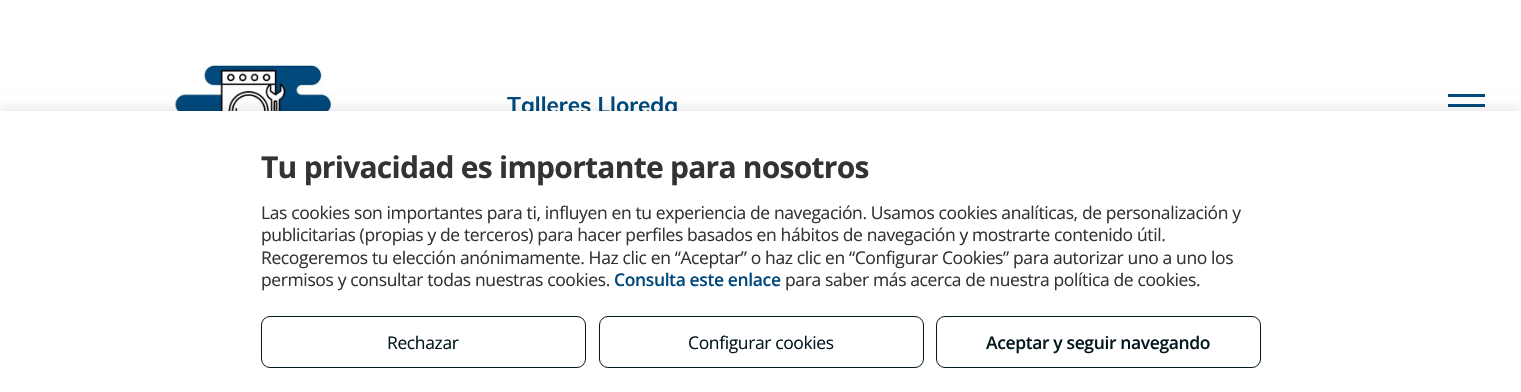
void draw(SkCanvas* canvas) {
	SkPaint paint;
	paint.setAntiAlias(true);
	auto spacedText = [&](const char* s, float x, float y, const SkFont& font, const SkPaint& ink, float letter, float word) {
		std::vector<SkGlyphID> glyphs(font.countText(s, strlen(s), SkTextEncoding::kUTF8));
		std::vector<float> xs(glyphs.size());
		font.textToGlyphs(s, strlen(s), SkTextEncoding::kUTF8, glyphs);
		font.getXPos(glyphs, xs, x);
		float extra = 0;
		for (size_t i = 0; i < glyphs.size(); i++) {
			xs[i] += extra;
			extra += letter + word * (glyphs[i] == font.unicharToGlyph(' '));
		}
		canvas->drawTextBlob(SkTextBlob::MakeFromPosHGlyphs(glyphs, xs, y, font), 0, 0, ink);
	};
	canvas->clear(0xffffffff);
	canvas->drawImageRect(SkImages::DeferredFromEncodedData(SkData::MakeFromFileName("img1.png")), SkRect::MakeXYWH(175, 63, 157, 48), SkSamplingOptions());
	SkFont f1(fontMgr->matchFamilyStyle("Muli", SkFontStyle::Bold()), 22.5);
	f1.setSubpixel(true);
	paint.setColor(0xff00497c);
	canvas->drawString("Talleres Lloreda", 507, 113, f1, paint);
	canvas->drawRect(SkRect::MakeXYWH(1448, 94, 37, 3), paint);
	canvas->drawRect(SkRect::MakeXYWH(1448, 104, 37, 3), paint);
	paint.setColor(0x1a000000);
	paint.setMaskFilter(SkMaskFilter::MakeBlur(kNormal_SkBlurStyle, 6));
	canvas->drawRect(SkRect::MakeXYWH(0, 109, 1521, 281), paint);
	paint.setMaskFilter(nullptr);
	paint.setColor(0xffffffff);
	canvas->drawRect(SkRect::MakeXYWH(0, 111, 1521, 281), paint);
	SkFont f2(fontMgr->matchFamilyStyle("Open Sans", SkFontStyle::Bold()), 30);
	f2.setSubpixel(true);
	paint.setColor(0xff333333);
	spacedText("Tu privacidad es importante para nosotros", 261, 178, f2, paint, -0.75, 0);
	SkFont f3(fontMgr->matchFamilyStyle("Open Sans", SkFontStyle::Normal()), 17.5);
	f3.setSubpixel(true);
	spacedText("Las cookies son importantes para ti, influyen en tu experiencia de navegación. Usamos cookies analíticas, de personalización y", 261, 219, f3, paint, -0.38, 0);
	spacedText("publicitarias (propias y de terceros) para hacer perfiles basados en hábitos de navegación y mostrarte contenido útil.", 261, 241, f3, paint, -0.38, 0);
	spacedText("Recogeremos tu elección anónimamente. Haz clic en “Aceptar” o haz clic en “Configurar Cookies” para autorizar uno a uno los", 261, 264, f3, paint, -0.38, 0);
	spacedText("permisos y consultar todas nuestras cookies.", 261, 286, f3, paint, -0.38, 0);
	SkFont f4(fontMgr->matchFamilyStyle("Open Sans", SkFontStyle(600, SkFontStyle::kNormal_Width, SkFontStyle::kUpright_Slant)), 17.5);
	f4.setSubpixel(true);
	paint.setColor(0xff00497c);
	spacedText("Consulta este enlace", 614, 286, f4, paint, -0.38, 0);
	paint.setColor(0xff333333);
	spacedText("para saber más acerca de nuestra política de cookies.", 785, 286, f3, paint, -0.38, 0);
	paint.setStroke(true);
	paint.setStrokeWidth(1);
	paint.setColor(0xff03181e);
	canvas->drawRoundRect(SkRect::MakeXYWH(261.5, 316.5, 324, 51), 8.5, 8.5, paint);
	paint.setStroke(false);
	spacedText("Rechazar", 387, 349, f3, paint, -0.38, 0);
	paint.setStroke(true);
	canvas->drawRoundRect(SkRect::MakeXYWH(599.5, 316.5, 324, 51), 8.5, 8.5, paint);
	paint.setStroke(false);
	spacedText("Configurar cookies", 688, 349, f3, paint, -0.38, 0);
	paint.setStroke(true);
	canvas->drawRoundRect(SkRect::MakeXYWH(936.5, 316.5, 324, 51), 8.5, 8.5, paint);
	paint.setStroke(false);
	spacedText("Aceptar y seguir navegando", 986, 349, f4, paint, -0.38, 0);
}
